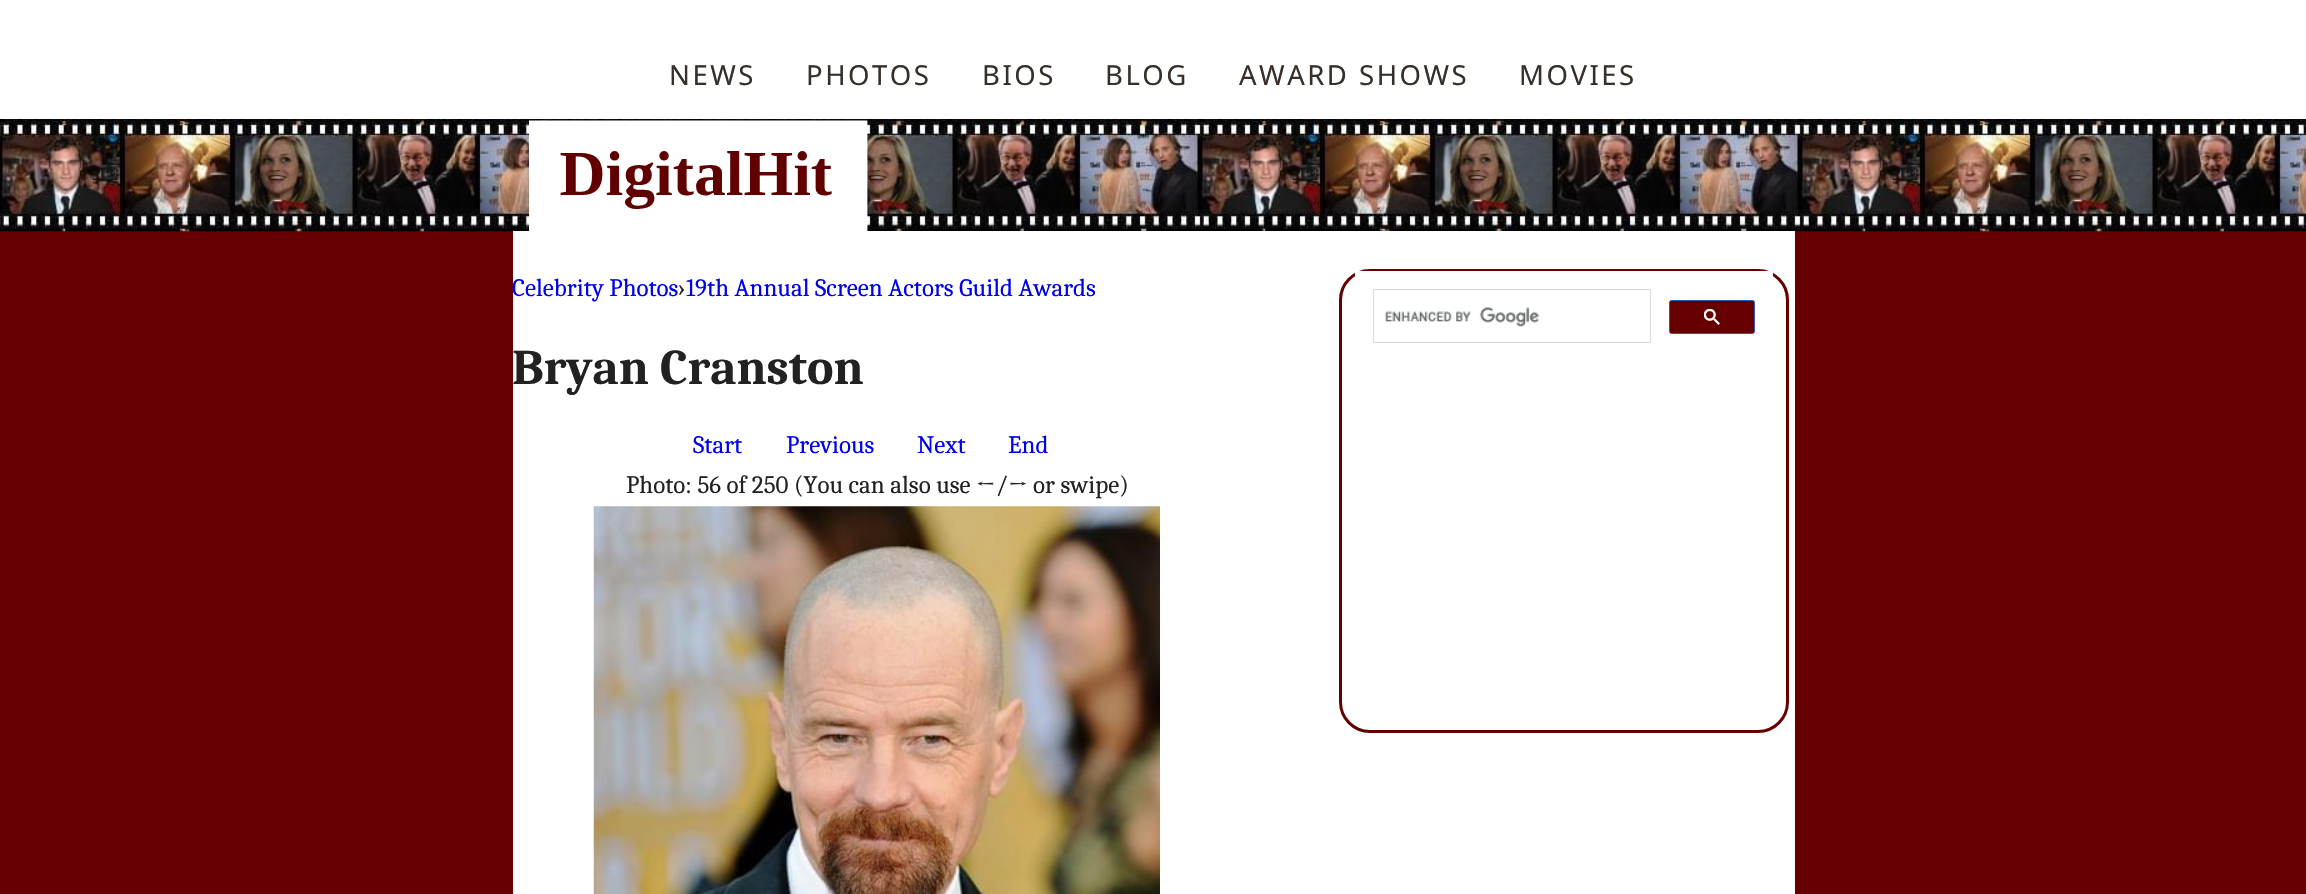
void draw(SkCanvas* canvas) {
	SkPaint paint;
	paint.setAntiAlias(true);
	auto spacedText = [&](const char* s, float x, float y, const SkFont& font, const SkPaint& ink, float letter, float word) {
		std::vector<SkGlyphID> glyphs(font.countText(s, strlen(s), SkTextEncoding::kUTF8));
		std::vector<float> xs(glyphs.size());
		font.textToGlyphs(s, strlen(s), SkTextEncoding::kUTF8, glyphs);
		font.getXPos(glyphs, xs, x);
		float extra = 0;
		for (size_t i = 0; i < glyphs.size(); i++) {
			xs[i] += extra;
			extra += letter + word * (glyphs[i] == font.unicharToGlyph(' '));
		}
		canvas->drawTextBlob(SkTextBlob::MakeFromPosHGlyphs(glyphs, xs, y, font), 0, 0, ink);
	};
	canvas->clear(0xff660000);
	paint.setColor(0xffffffff);
	canvas->drawRect(SkRect::MakeXYWH(0, 0, 2306, 119), paint);
	SkFont f1(fontMgr->matchFamilyStyle("Noto Sans", SkFontStyle::Normal()), 27.5);
	f1.setSubpixel(true);
	paint.setColor(0xff37302a);
	spacedText("NEWS", 669, 85, f1, paint, 2.5, 0);
	spacedText("PHOTOS", 806, 85, f1, paint, 2.5, 0);
	spacedText("BIOS", 982, 85, f1, paint, 2.5, 0);
	spacedText("BLOG", 1105, 85, f1, paint, 2.5, 0);
	spacedText("AWARD SHOWS", 1239, 85, f1, paint, 2.5, 0);
	spacedText("MOVIES", 1519, 85, f1, paint, 2.5, 0);
	canvas->drawImageRect(SkImages::DeferredFromEncodedData(SkData::MakeFromFileName("img1.png")), SkRect::MakeXYWH(0, 119, 2306, 113), SkSamplingOptions());
	canvas->drawImageRect(SkImages::DeferredFromEncodedData(SkData::MakeFromFileName("img2.png")), SkRect::MakeXYWH(529, 120, 339, 111), SkSamplingOptions());
	paint.setColor(0xffffffff);
	canvas->drawRect(SkRect::MakeXYWH(513, 231, 1282, 663), paint);
	SkFont f2(fontMgr->matchFamilyStyle("Caladea", SkFontStyle::Normal()), 25);
	f2.setSubpixel(true);
	paint.setColor(0xff0000ee);
	canvas->drawString("Celebrity Photos", 512, 296, f2, paint);
	paint.setColor(0xff222222);
	canvas->drawString("›", 678, 296, f2, paint);
	paint.setColor(0xff0000ee);
	canvas->drawString("19th Annual Screen Actors Guild Awards", 686, 296, f2, paint);
	SkFont f3(fontMgr->matchFamilyStyle("Caladea", SkFontStyle::Bold()), 50);
	f3.setSubpixel(true);
	paint.setColor(0xff222222);
	canvas->drawString("Bryan Cranston", 512, 384, f3, paint);
	paint.setColor(0xff0000ee);
	canvas->drawString("Start", 693, 453, f2, paint);
	canvas->drawString("Previous", 786, 453, f2, paint);
	canvas->drawString("Next", 917, 453, f2, paint);
	canvas->drawString("End", 1008, 453, f2, paint);
	paint.setColor(0xff222222);
	canvas->drawString("Photo: 56 of 250 (You can also use ←/→ or swipe)", 626, 493, f2, paint);
	canvas->drawImageRect(SkImages::DeferredFromEncodedData(SkData::MakeFromFileName("img3.png")), SkRect::MakeXYWH(593, 506, 567, 388), SkSamplingOptions());
	paint.setStroke(true);
	paint.setStrokeWidth(3);
	paint.setColor(0xff660000);
	canvas->drawRoundRect(SkRect::MakeXYWH(1340.5, 270.5, 447, 461), 29.5, 29.5, paint);
	paint.setStroke(false);
	paint.setColor(0xffffffff);
	canvas->drawRect(SkRect::MakeXYWH(1355, 271, 418, 6), paint);
	paint.setStroke(true);
	paint.setStrokeWidth(1);
	paint.setColor(0xffd9d9d9);
	canvas->drawRect(SkRect::MakeXYWH(1373.5, 289.5, 277, 53), paint);
	canvas->drawImageRect(SkImages::DeferredFromEncodedData(SkData::MakeFromFileName("img4.png")), SkRect::MakeXYWH(1385, 307, 154, 20), SkSamplingOptions());
	paint.setStroke(false);
	paint.setColor(0xff660000);
	canvas->drawRoundRect(SkRect::MakeXYWH(1669.5, 300.5, 85, 33), 2, 2, paint);
	paint.setStroke(true);
	paint.setColor(0xff2f5bb7);
	canvas->drawRoundRect(SkRect::MakeXYWH(1669.5, 300.5, 85, 33), 2, 2, paint);
	canvas->drawImageRect(SkImages::DeferredFromEncodedData(SkData::MakeFromFileName("img5.png")), SkRect::MakeXYWH(1704, 309, 16, 16), SkSamplingOptions());
}
